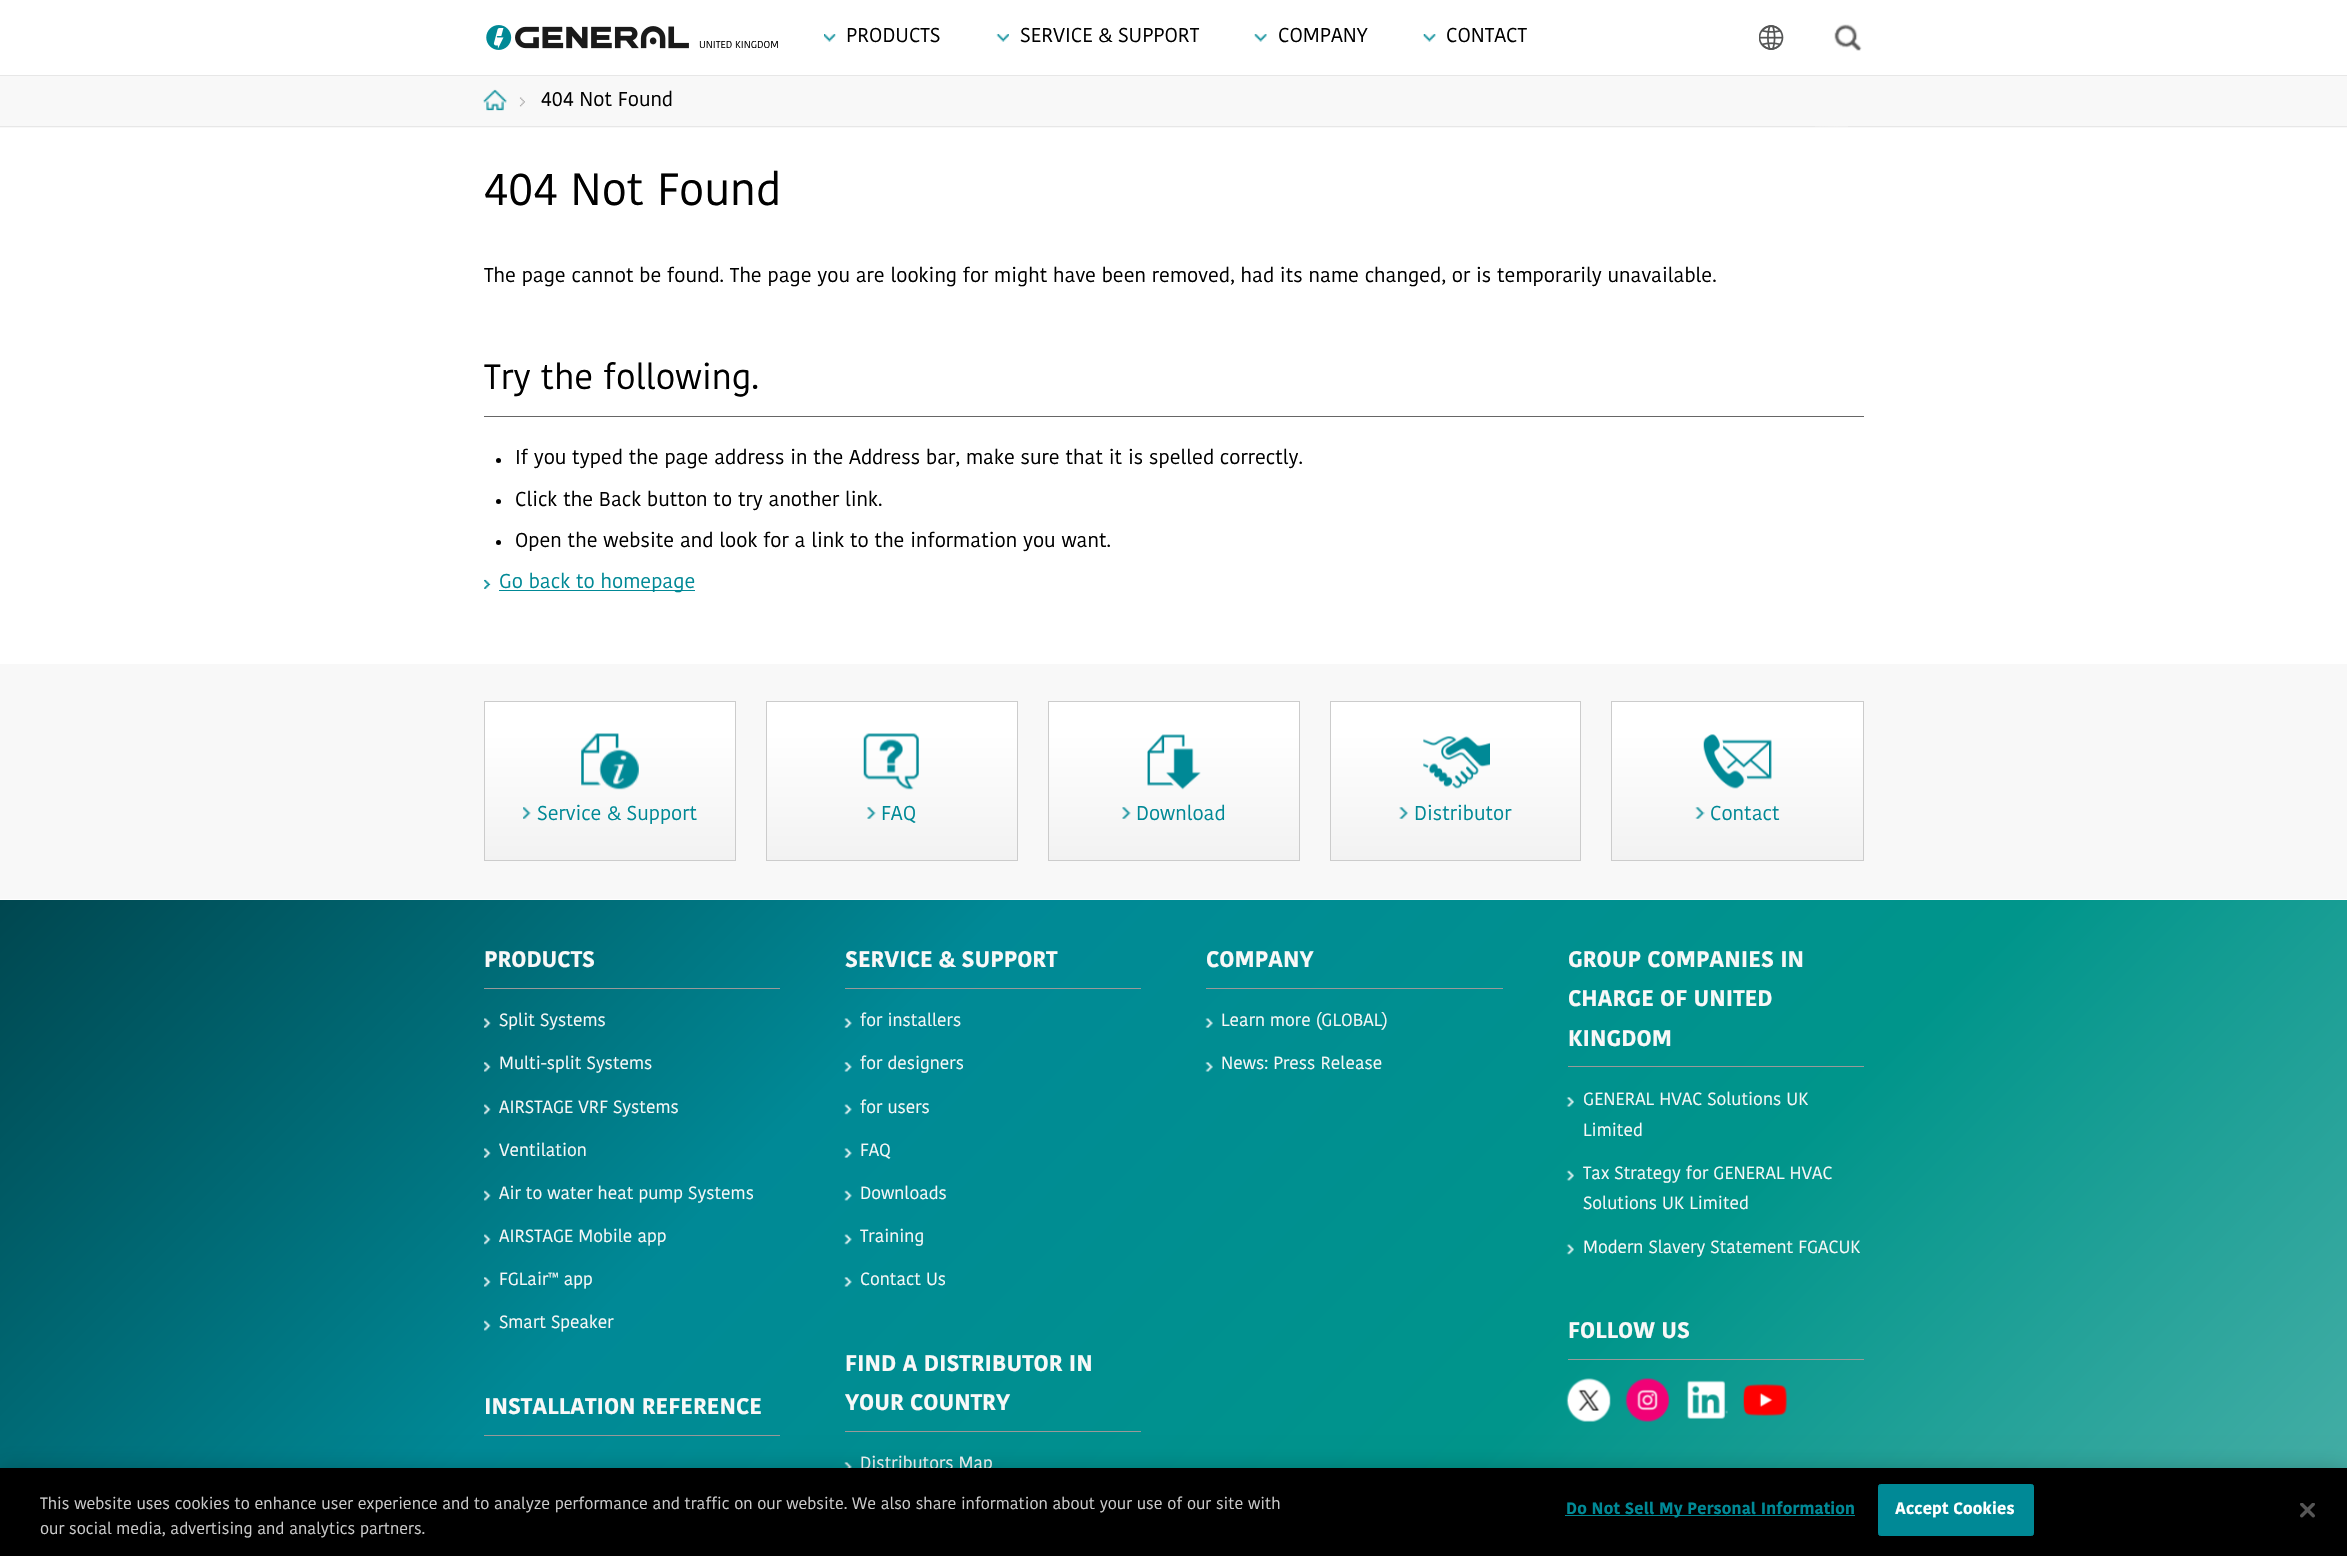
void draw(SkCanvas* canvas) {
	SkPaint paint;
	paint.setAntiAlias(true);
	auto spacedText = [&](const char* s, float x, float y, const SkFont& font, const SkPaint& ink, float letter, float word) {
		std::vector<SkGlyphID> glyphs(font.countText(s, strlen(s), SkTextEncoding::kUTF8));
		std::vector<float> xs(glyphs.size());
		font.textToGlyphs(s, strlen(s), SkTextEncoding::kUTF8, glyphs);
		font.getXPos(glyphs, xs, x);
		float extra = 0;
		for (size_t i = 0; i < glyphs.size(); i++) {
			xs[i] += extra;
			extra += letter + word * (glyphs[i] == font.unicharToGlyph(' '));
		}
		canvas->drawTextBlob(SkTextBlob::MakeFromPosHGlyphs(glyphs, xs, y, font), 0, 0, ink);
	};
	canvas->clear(0xffffffff);
	paint.setColor(0xffe7e7e7);
	canvas->drawRect(SkRect::MakeXYWH(0, 75, 2347, 1), paint);
	canvas->drawImageRect(SkImages::DeferredFromEncodedData(SkData::MakeFromFileName("img1.png")), SkRect::MakeXYWH(824, 34, 12, 8), SkSamplingOptions());
	SkFont f1(fontMgr->matchFamilyStyle("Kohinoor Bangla", SkFontStyle::Normal()), 20);
	f1.setSubpixel(true);
	paint.setColor(0xff000000);
	canvas->drawString("PRODUCTS", 846, 42, f1, paint);
	canvas->drawImageRect(SkImages::DeferredFromEncodedData(SkData::MakeFromFileName("img2.png")), SkRect::MakeXYWH(996, 34, 13, 8), SkSamplingOptions());
	canvas->drawString("SERVICE & SUPPORT", 1020, 42, f1, paint);
	canvas->drawImageRect(SkImages::DeferredFromEncodedData(SkData::MakeFromFileName("img3.png")), SkRect::MakeXYWH(1254, 34, 13, 8), SkSamplingOptions());
	canvas->drawString("COMPANY", 1278, 42, f1, paint);
	canvas->drawImageRect(SkImages::DeferredFromEncodedData(SkData::MakeFromFileName("img4.png")), SkRect::MakeXYWH(1423, 34, 13, 8), SkSamplingOptions());
	canvas->drawString("CONTACT", 1446, 42, f1, paint);
	canvas->drawImageRect(SkImages::DeferredFromEncodedData(SkData::MakeFromFileName("img5.png")), SkRect::MakeXYWH(1759, 25, 25, 25), SkSamplingOptions());
	canvas->drawImageRect(SkImages::DeferredFromEncodedData(SkData::MakeFromFileName("img6.png")), SkRect::MakeXYWH(1834, 24, 28, 27), SkSamplingOptions());
	canvas->drawImageRect(SkImages::DeferredFromEncodedData(SkData::MakeFromFileName("img7.png")), SkRect::MakeXYWH(486, 25, 203, 25), SkSamplingOptions());
	SkFont f2(fontMgr->matchFamilyStyle("Kohinoor Bangla", SkFontStyle::Normal()), 10);
	f2.setSubpixel(true);
	canvas->drawString("UNITED KINGDOM", 699, 48, f2, paint);
	paint.setColor(0xfff8f8f8);
	canvas->drawRect(SkRect::MakeXYWH(0, 76, 2347, 52), paint);
	paint.setColor(0xffe7e7e7);
	canvas->drawRect(SkRect::MakeXYWH(0, 126, 2347, 1), paint);
	canvas->drawImageRect(SkImages::DeferredFromEncodedData(SkData::MakeFromFileName("img8.png")), SkRect::MakeXYWH(519, 97, 6, 10), SkSamplingOptions());
	canvas->drawImageRect(SkImages::DeferredFromEncodedData(SkData::MakeFromFileName("img9.png")), SkRect::MakeXYWH(483, 89, 24, 22), SkSamplingOptions());
	paint.setColor(0xff000000);
	canvas->drawString("404 Not Found", 541, 106, f1, paint);
	canvas->drawImageRect(SkImages::DeferredFromEncodedData(SkData::MakeFromFileName("img10.png")), SkRect::MakeXYWH(1815, 126, 33, 1), SkSamplingOptions());
	SkFont f3(fontMgr->matchFamilyStyle("Kohinoor Bangla", SkFontStyle::Normal()), 45);
	f3.setSubpixel(true);
	canvas->drawString("404 Not Found", 484, 205, f3, paint);
	canvas->drawString("The page cannot be found. The page you are looking for might have been removed, had its name changed, or is temporarily unavailable.", 484, 282, f1, paint);
	paint.setColor(0xff666666);
	canvas->drawRect(SkRect::MakeXYWH(484, 416, 1380, 1), paint);
	SkFont f4(fontMgr->matchFamilyStyle("Kohinoor Bangla", SkFontStyle::Normal()), 35);
	f4.setSubpixel(true);
	paint.setColor(0xff000000);
	canvas->drawString("Try the following.", 484, 389, f4, paint);
	canvas->drawCircle(498.5, 460.5, 2.5, paint);
	canvas->drawString("If you typed the page address in the Address bar, make sure that it is spelled correctly.", 515, 464, f1, paint);
	canvas->drawCircle(498.5, 501.5, 2.5, paint);
	canvas->drawString("Click the Back button to try another link.", 515, 506, f1, paint);
	canvas->drawCircle(498.5, 542.5, 2.5, paint);
	canvas->drawString("Open the website and look for a link to the information you want.", 515, 547, f1, paint);
	canvas->drawImageRect(SkImages::DeferredFromEncodedData(SkData::MakeFromFileName("img11.png")), SkRect::MakeXYWH(484, 579, 7, 10), SkSamplingOptions());
	paint.setColor(0xff008996);
	canvas->drawRect(SkRect::MakeXYWH(499, 590, 196, 1), paint);
	canvas->drawString("Go back to homepage", 499, 588, f1, paint);
	paint.setColor(0xfff8f8f8);
	canvas->drawRect(SkRect::MakeXYWH(0, 664, 2347, 235), paint);
	{
		const SkColor colors[] = {0xffffffff, 0xfff2f2f2};
		const float stops[] = {0.2, 1};
		const SkPoint ends[] = {{610, 701}, {610, 861}};
		paint.setShader(SkGradientShader::MakeLinear(ends, colors, stops, 2, SkTileMode::kClamp));
		paint.setAlpha(255);
	}
	canvas->drawRect(SkRect::MakeXYWH(485, 702, 250, 158), paint);
	paint.setStroke(true);
	paint.setStrokeWidth(1);
	paint.setShader(nullptr);
	paint.setColor(0xffcccccc);
	canvas->drawRect(SkRect::MakeXYWH(484.5, 701.5, 251, 159), paint);
	canvas->drawImageRect(SkImages::DeferredFromEncodedData(SkData::MakeFromFileName("img12.png")), SkRect::MakeXYWH(581, 733, 58, 57), SkSamplingOptions());
	canvas->drawImageRect(SkImages::DeferredFromEncodedData(SkData::MakeFromFileName("img13.png")), SkRect::MakeXYWH(523, 807, 8, 12), SkSamplingOptions());
	paint.setStroke(false);
	paint.setColor(0xff008996);
	canvas->drawString("Service & Support", 537, 820, f1, paint);
	{
		const SkColor colors[] = {0xffffffff, 0xfff2f2f2};
		const float stops[] = {0.2, 1};
		const SkPoint ends[] = {{892, 701}, {892, 861}};
		paint.setShader(SkGradientShader::MakeLinear(ends, colors, stops, 2, SkTileMode::kClamp));
		paint.setAlpha(255);
	}
	canvas->drawRect(SkRect::MakeXYWH(767, 702, 250, 158), paint);
	paint.setStroke(true);
	paint.setShader(nullptr);
	paint.setColor(0xffcccccc);
	canvas->drawRect(SkRect::MakeXYWH(766.5, 701.5, 251, 159), paint);
	canvas->drawImageRect(SkImages::DeferredFromEncodedData(SkData::MakeFromFileName("img14.png")), SkRect::MakeXYWH(863, 733, 56, 57), SkSamplingOptions());
	canvas->drawImageRect(SkImages::DeferredFromEncodedData(SkData::MakeFromFileName("img15.png")), SkRect::MakeXYWH(867, 807, 9, 12), SkSamplingOptions());
	paint.setStroke(false);
	paint.setColor(0xff008996);
	canvas->drawString("FAQ", 881, 820, f1, paint);
	{
		const SkColor colors[] = {0xffffffff, 0xfff2f2f2};
		const float stops[] = {0.2, 1};
		const SkPoint ends[] = {{1174, 701}, {1174, 861}};
		paint.setShader(SkGradientShader::MakeLinear(ends, colors, stops, 2, SkTileMode::kClamp));
		paint.setAlpha(255);
	}
	canvas->drawRect(SkRect::MakeXYWH(1049, 702, 250, 158), paint);
	paint.setStroke(true);
	paint.setShader(nullptr);
	paint.setColor(0xffcccccc);
	canvas->drawRect(SkRect::MakeXYWH(1048.5, 701.5, 251, 159), paint);
	canvas->drawImageRect(SkImages::DeferredFromEncodedData(SkData::MakeFromFileName("img16.png")), SkRect::MakeXYWH(1147, 734, 54, 56), SkSamplingOptions());
	canvas->drawImageRect(SkImages::DeferredFromEncodedData(SkData::MakeFromFileName("img17.png")), SkRect::MakeXYWH(1122, 807, 9, 12), SkSamplingOptions());
	paint.setStroke(false);
	paint.setColor(0xff008996);
	canvas->drawString("Download", 1136, 820, f1, paint);
	{
		const SkColor colors[] = {0xffffffff, 0xfff2f2f2};
		const float stops[] = {0.2, 1};
		const SkPoint ends[] = {{1456, 701}, {1456, 861}};
		paint.setShader(SkGradientShader::MakeLinear(ends, colors, stops, 2, SkTileMode::kClamp));
		paint.setAlpha(255);
	}
	canvas->drawRect(SkRect::MakeXYWH(1331, 702, 249, 158), paint);
	paint.setStroke(true);
	paint.setShader(nullptr);
	paint.setColor(0xffcccccc);
	canvas->drawRect(SkRect::MakeXYWH(1330.5, 701.5, 250, 159), paint);
	canvas->drawImageRect(SkImages::DeferredFromEncodedData(SkData::MakeFromFileName("img18.png")), SkRect::MakeXYWH(1423, 736, 67, 53), SkSamplingOptions());
	canvas->drawImageRect(SkImages::DeferredFromEncodedData(SkData::MakeFromFileName("img19.png")), SkRect::MakeXYWH(1399, 807, 9, 12), SkSamplingOptions());
	paint.setStroke(false);
	paint.setColor(0xff008996);
	canvas->drawString("Distributor", 1414, 820, f1, paint);
	{
		const SkColor colors[] = {0xffffffff, 0xfff2f2f2};
		const float stops[] = {0.2, 1};
		const SkPoint ends[] = {{1738, 701}, {1738, 861}};
		paint.setShader(SkGradientShader::MakeLinear(ends, colors, stops, 2, SkTileMode::kClamp));
		paint.setAlpha(255);
	}
	canvas->drawRect(SkRect::MakeXYWH(1612, 702, 251, 158), paint);
	paint.setStroke(true);
	paint.setShader(nullptr);
	paint.setColor(0xffcccccc);
	canvas->drawRect(SkRect::MakeXYWH(1611.5, 701.5, 252, 159), paint);
	canvas->drawImageRect(SkImages::DeferredFromEncodedData(SkData::MakeFromFileName("img20.png")), SkRect::MakeXYWH(1703, 734, 69, 55), SkSamplingOptions());
	canvas->drawImageRect(SkImages::DeferredFromEncodedData(SkData::MakeFromFileName("img21.png")), SkRect::MakeXYWH(1695, 807, 10, 12), SkSamplingOptions());
	paint.setStroke(false);
	paint.setColor(0xff008996);
	canvas->drawString("Contact", 1710, 820, f1, paint);
	{
		const SkColor colors[] = {0xff004750, 0xff008996, 0xff00958b, 0xff50b2aa};
		const float stops[] = {0, 0.33, 0.66, 1};
		const SkPoint ends[] = {{403, 497}, {1945, 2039}};
		paint.setShader(SkGradientShader::MakeLinear(ends, colors, stops, 4, SkTileMode::kClamp));
		paint.setAlpha(255);
	}
	canvas->drawRect(SkRect::MakeXYWH(0, 900, 2347, 568), paint);
	paint.setShader(nullptr);
	paint.setColor(0xff999999);
	canvas->drawRect(SkRect::MakeXYWH(484, 988, 296, 1), paint);
	SkFont f5(fontMgr->matchFamilyStyle("Kohinoor Bangla", SkFontStyle::Bold()), 22.5);
	f5.setSubpixel(true);
	paint.setColor(0xfff8f8f8);
	canvas->drawString("PRODUCTS", 484, 967, f5, paint);
	canvas->drawImageRect(SkImages::DeferredFromEncodedData(SkData::MakeFromFileName("img22.png")), SkRect::MakeXYWH(484, 1018, 7, 10), SkSamplingOptions());
	SkFont f6(fontMgr->matchFamilyStyle("Kohinoor Bangla", SkFontStyle::Normal()), 17.5);
	f6.setSubpixel(true);
	canvas->drawString("Split Systems", 499, 1026, f6, paint);
	canvas->drawImageRect(SkImages::DeferredFromEncodedData(SkData::MakeFromFileName("img23.png")), SkRect::MakeXYWH(484, 1062, 7, 10), SkSamplingOptions());
	canvas->drawString("Multi-split Systems", 499, 1069, f6, paint);
	canvas->drawImageRect(SkImages::DeferredFromEncodedData(SkData::MakeFromFileName("img24.png")), SkRect::MakeXYWH(484, 1104, 7, 11), SkSamplingOptions());
	canvas->drawString("AIRSTAGE VRF Systems", 499, 1113, f6, paint);
	canvas->drawImageRect(SkImages::DeferredFromEncodedData(SkData::MakeFromFileName("img25.png")), SkRect::MakeXYWH(484, 1148, 7, 10), SkSamplingOptions());
	canvas->drawString("Ventilation", 499, 1156, f6, paint);
	canvas->drawImageRect(SkImages::DeferredFromEncodedData(SkData::MakeFromFileName("img26.png")), SkRect::MakeXYWH(484, 1190, 7, 11), SkSamplingOptions());
	canvas->drawString("Air to water heat pump Systems", 499, 1199, f6, paint);
	canvas->drawImageRect(SkImages::DeferredFromEncodedData(SkData::MakeFromFileName("img27.png")), SkRect::MakeXYWH(484, 1234, 7, 11), SkSamplingOptions());
	canvas->drawString("AIRSTAGE Mobile app", 499, 1242, f6, paint);
	canvas->drawImageRect(SkImages::DeferredFromEncodedData(SkData::MakeFromFileName("img28.png")), SkRect::MakeXYWH(484, 1277, 7, 10), SkSamplingOptions());
	canvas->drawString("FGLair™ app", 499, 1285, f6, paint);
	canvas->drawImageRect(SkImages::DeferredFromEncodedData(SkData::MakeFromFileName("img29.png")), SkRect::MakeXYWH(484, 1320, 7, 11), SkSamplingOptions());
	canvas->drawString("Smart Speaker", 499, 1328, f6, paint);
	paint.setColor(0xff999999);
	canvas->drawRect(SkRect::MakeXYWH(484, 1435, 296, 1), paint);
	paint.setColor(0xfff8f8f8);
	canvas->drawString("INSTALLATION REFERENCE", 484, 1414, f5, paint);
	paint.setColor(0xff999999);
	canvas->drawRect(SkRect::MakeXYWH(845, 988, 296, 1), paint);
	paint.setColor(0xfff8f8f8);
	canvas->drawString("SERVICE & SUPPORT", 845, 967, f5, paint);
	canvas->drawImageRect(SkImages::DeferredFromEncodedData(SkData::MakeFromFileName("img30.png")), SkRect::MakeXYWH(844, 1018, 8, 10), SkSamplingOptions());
	canvas->drawString("for installers", 860, 1026, f6, paint);
	canvas->drawImageRect(SkImages::DeferredFromEncodedData(SkData::MakeFromFileName("img31.png")), SkRect::MakeXYWH(844, 1062, 8, 10), SkSamplingOptions());
	canvas->drawString("for designers", 860, 1069, f6, paint);
	canvas->drawImageRect(SkImages::DeferredFromEncodedData(SkData::MakeFromFileName("img32.png")), SkRect::MakeXYWH(844, 1104, 8, 11), SkSamplingOptions());
	canvas->drawString("for users", 860, 1113, f6, paint);
	canvas->drawImageRect(SkImages::DeferredFromEncodedData(SkData::MakeFromFileName("img33.png")), SkRect::MakeXYWH(844, 1148, 8, 10), SkSamplingOptions());
	canvas->drawString("FAQ", 860, 1156, f6, paint);
	canvas->drawImageRect(SkImages::DeferredFromEncodedData(SkData::MakeFromFileName("img34.png")), SkRect::MakeXYWH(844, 1190, 8, 11), SkSamplingOptions());
	canvas->drawString("Downloads", 860, 1199, f6, paint);
	canvas->drawImageRect(SkImages::DeferredFromEncodedData(SkData::MakeFromFileName("img35.png")), SkRect::MakeXYWH(844, 1234, 8, 11), SkSamplingOptions());
	canvas->drawString("Training", 860, 1242, f6, paint);
	canvas->drawImageRect(SkImages::DeferredFromEncodedData(SkData::MakeFromFileName("img36.png")), SkRect::MakeXYWH(844, 1277, 8, 10), SkSamplingOptions());
	canvas->drawString("Contact Us", 860, 1285, f6, paint);
	paint.setColor(0xff999999);
	canvas->drawRect(SkRect::MakeXYWH(845, 1431, 296, 1), paint);
	paint.setColor(0xfff8f8f8);
	canvas->drawString("FIND A DISTRIBUTOR IN", 845, 1371, f5, paint);
	canvas->drawString("YOUR COUNTRY", 845, 1410, f5, paint);
	canvas->drawImageRect(SkImages::DeferredFromEncodedData(SkData::MakeFromFileName("img37.png")), SkRect::MakeXYWH(844, 1462, 8, 6), SkSamplingOptions());
	canvas->drawString("Distributors Map", 860, 1469, f6, paint);
	paint.setColor(0xff999999);
	canvas->drawRect(SkRect::MakeXYWH(1206, 988, 297, 1), paint);
	paint.setColor(0xfff8f8f8);
	canvas->drawString("COMPANY", 1206, 967, f5, paint);
	canvas->drawImageRect(SkImages::DeferredFromEncodedData(SkData::MakeFromFileName("img38.png")), SkRect::MakeXYWH(1205, 1018, 8, 10), SkSamplingOptions());
	canvas->drawString("Learn more (GLOBAL)", 1221, 1026, f6, paint);
	canvas->drawImageRect(SkImages::DeferredFromEncodedData(SkData::MakeFromFileName("img39.png")), SkRect::MakeXYWH(1205, 1062, 8, 10), SkSamplingOptions());
	canvas->drawString("News: Press Release", 1221, 1069, f6, paint);
	paint.setColor(0xff999999);
	canvas->drawRect(SkRect::MakeXYWH(1568, 1066, 296, 1), paint);
	paint.setColor(0xfff8f8f8);
	canvas->drawString("GROUP COMPANIES IN", 1568, 967, f5, paint);
	canvas->drawString("CHARGE OF UNITED", 1568, 1006, f5, paint);
	canvas->drawString("KINGDOM", 1568, 1046, f5, paint);
	canvas->drawImageRect(SkImages::DeferredFromEncodedData(SkData::MakeFromFileName("img40.png")), SkRect::MakeXYWH(1566, 1097, 8, 10), SkSamplingOptions());
	canvas->drawString("GENERAL HVAC Solutions UK", 1583, 1105, f6, paint);
	canvas->drawString("Limited", 1583, 1136, f6, paint);
	canvas->drawImageRect(SkImages::DeferredFromEncodedData(SkData::MakeFromFileName("img41.png")), SkRect::MakeXYWH(1566, 1170, 8, 11), SkSamplingOptions());
	canvas->drawString("Tax Strategy for GENERAL HVAC", 1583, 1179, f6, paint);
	canvas->drawString("Solutions UK Limited", 1583, 1209, f6, paint);
	canvas->drawImageRect(SkImages::DeferredFromEncodedData(SkData::MakeFromFileName("img42.png")), SkRect::MakeXYWH(1566, 1244, 8, 11), SkSamplingOptions());
	canvas->drawString("Modern Slavery Statement FGACUK", 1583, 1253, f6, paint);
	paint.setColor(0xff999999);
	canvas->drawRect(SkRect::MakeXYWH(1568, 1359, 296, 1), paint);
	paint.setColor(0xfff8f8f8);
	canvas->drawString("FOLLOW US", 1568, 1338, f5, paint);
	canvas->drawImageRect(SkImages::DeferredFromEncodedData(SkData::MakeFromFileName("img43.png")), SkRect::MakeXYWH(1566, 1378, 45, 44), SkSamplingOptions());
	canvas->drawImageRect(SkImages::DeferredFromEncodedData(SkData::MakeFromFileName("img44.png")), SkRect::MakeXYWH(1625, 1378, 44, 44), SkSamplingOptions());
	canvas->drawImageRect(SkImages::DeferredFromEncodedData(SkData::MakeFromFileName("img45.png")), SkRect::MakeXYWH(1687, 1380, 41, 39), SkSamplingOptions());
	canvas->drawImageRect(SkImages::DeferredFromEncodedData(SkData::MakeFromFileName("img46.png")), SkRect::MakeXYWH(1743, 1384, 44, 32), SkSamplingOptions());
	paint.setColor(0x33000000);
	paint.setMaskFilter(SkMaskFilter::MakeBlur(kNormal_SkBlurStyle, 11));
	canvas->drawRect(SkRect::MakeXYWH(0, 1468, 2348, 88), paint);
	paint.setMaskFilter(nullptr);
	paint.setColor(0xff000000);
	canvas->drawRect(SkRect::MakeXYWH(0, 1468, 2347, 88), paint);
	SkFont f7(fontMgr->matchFamilyStyle("Kohinoor Bangla", SkFontStyle::Normal()), 16.25);
	f7.setSubpixel(true);
	paint.setColor(0xffcccccc);
	canvas->drawString("This website uses cookies to enhance user experience and to analyze performance and traffic on our website. We also share information about your use of our site with", 40, 1509, f7, paint);
	canvas->drawString("our social media, advertising and analytics partners.", 40, 1534, f7, paint);
	paint.setColor(0xff008996);
	canvas->drawRect(SkRect::MakeXYWH(1565, 1515, 290, 1), paint);
	SkFont f8(fontMgr->matchFamilyStyle("Kohinoor Bangla", SkFontStyle::Bold()), 16.25);
	f8.setSubpixel(true);
	spacedText("Do Not Sell My Personal Information", 1566, 1514, f8, paint, 0.15, 0);
	canvas->drawRoundRect(SkRect::MakeXYWH(1878.5, 1484.5, 155, 51), 2, 2, paint);
	paint.setStroke(true);
	canvas->drawRoundRect(SkRect::MakeXYWH(1878.5, 1484.5, 155, 51), 2, 2, paint);
	paint.setStroke(false);
	paint.setColor(0xffffffff);
	spacedText("Accept Cookies", 1895, 1514, f8, paint, 0.15, 0);
	canvas->drawImageRect(SkImages::DeferredFromEncodedData(SkData::MakeFromFileName("img47.png")), SkRect::MakeXYWH(2300, 1503, 15, 15), SkSamplingOptions());
}
